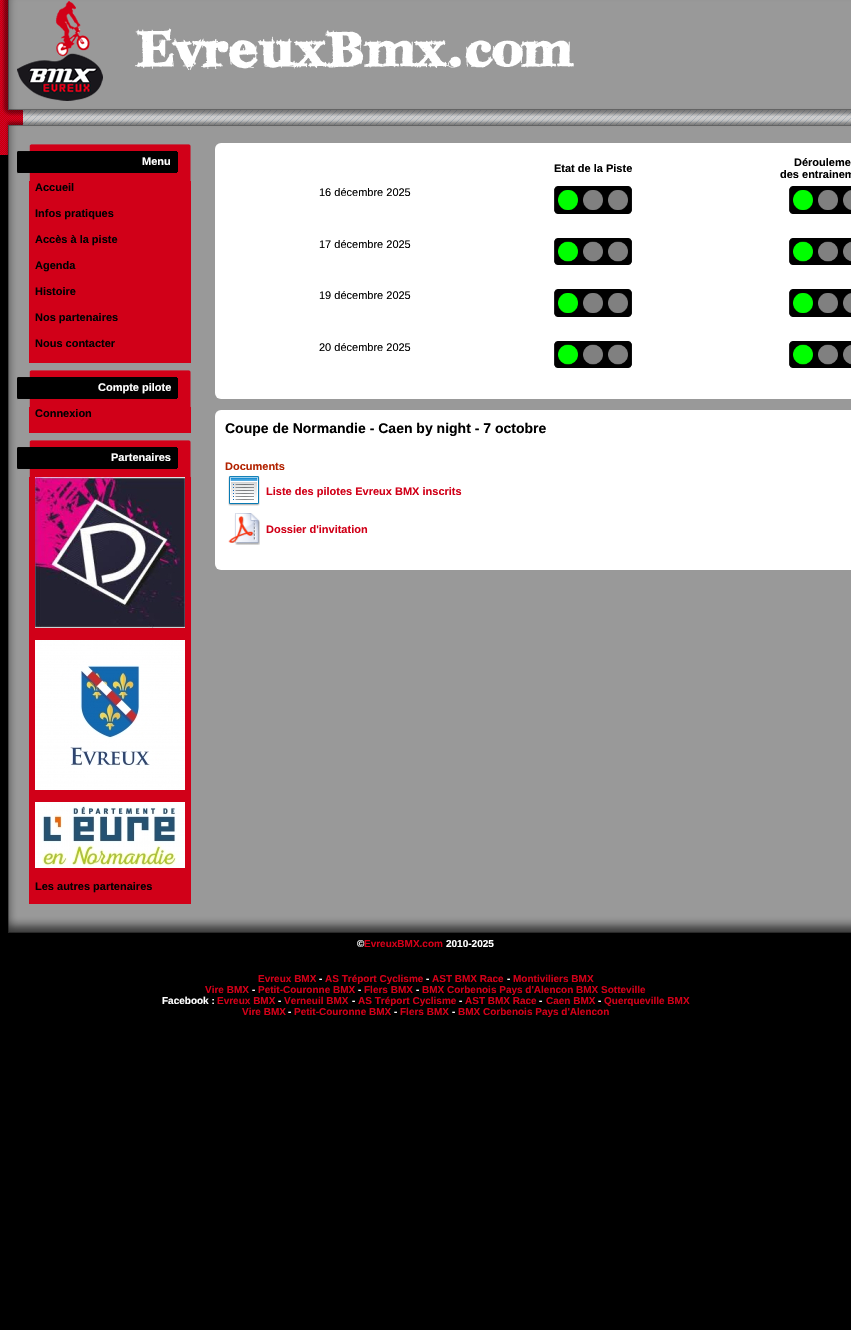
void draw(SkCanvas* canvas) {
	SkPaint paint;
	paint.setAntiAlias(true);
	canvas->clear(0xff000000);
	canvas->drawImageRect(SkImages::DeferredFromEncodedData(SkData::MakeFromFileName("img1.png")), SkRect::MakeXYWH(0, 0, 23, 155), SkSamplingOptions());
	canvas->drawImageRect(SkImages::DeferredFromEncodedData(SkData::MakeFromFileName("img2.png")), SkRect::MakeXYWH(2, 0, 849, 140), SkSamplingOptions());
	canvas->drawImageRect(SkImages::DeferredFromEncodedData(SkData::MakeFromFileName("img3.png")), SkRect::MakeXYWH(5, 140, 846, 767), SkSamplingOptions());
	canvas->drawImageRect(SkImages::DeferredFromEncodedData(SkData::MakeFromFileName("img4.png")), SkRect::MakeXYWH(17, 144, 174, 37), SkSamplingOptions());
	SkFont f1(fontMgr->matchFamilyStyle("Liberation Sans", SkFontStyle::Bold()), 11);
	f1.setSubpixel(true);
	paint.setColor(0xffffffff);
	canvas->drawString("Menu", 142, 165, f1, paint);
	paint.setColor(0xffd10018);
	canvas->drawRect(SkRect::MakeXYWH(29, 181, 162, 182), paint);
	paint.setColor(0xff000000);
	canvas->drawString("Accueil", 35, 191, f1, paint);
	canvas->drawString("Infos pratiques", 35, 217, f1, paint);
	canvas->drawString("Accès à la piste", 35, 243, f1, paint);
	canvas->drawString("Agenda", 35, 269, f1, paint);
	canvas->drawString("Histoire", 35, 295, f1, paint);
	canvas->drawString("Nos partenaires", 35, 321, f1, paint);
	canvas->drawString("Nous contacter", 35, 347, f1, paint);
	canvas->drawImageRect(SkImages::DeferredFromEncodedData(SkData::MakeFromFileName("img4.png")), SkRect::MakeXYWH(17, 370, 174, 37), SkSamplingOptions());
	paint.setColor(0xffffffff);
	canvas->drawString("Compte pilote", 98, 391, f1, paint);
	paint.setColor(0xffd10018);
	canvas->drawRect(SkRect::MakeXYWH(29, 407, 162, 26), paint);
	paint.setColor(0xff000000);
	canvas->drawString("Connexion", 35, 417, f1, paint);
	canvas->drawImageRect(SkImages::DeferredFromEncodedData(SkData::MakeFromFileName("img4.png")), SkRect::MakeXYWH(17, 440, 174, 37), SkSamplingOptions());
	paint.setColor(0xffffffff);
	canvas->drawString("Partenaires", 111, 461, f1, paint);
	paint.setColor(0xffd10018);
	canvas->drawRect(SkRect::MakeXYWH(29, 477, 162, 427), paint);
	canvas->drawImageRect(SkImages::DeferredFromEncodedData(SkData::MakeFromFileName("img5.png")), SkRect::MakeXYWH(35, 477, 150, 151), SkSamplingOptions());
	canvas->drawImageRect(SkImages::DeferredFromEncodedData(SkData::MakeFromFileName("img6.png")), SkRect::MakeXYWH(35, 640, 150, 150), SkSamplingOptions());
	canvas->drawImageRect(SkImages::DeferredFromEncodedData(SkData::MakeFromFileName("img7.png")), SkRect::MakeXYWH(35, 802, 150, 66), SkSamplingOptions());
	paint.setColor(0xff000000);
	canvas->drawString("Les autres partenaires", 35, 890, f1, paint);
	paint.setColor(0xffffffff);
	canvas->drawRoundRect(SkRect::MakeXYWH(215, 143, 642, 256), 6, 6, paint);
	paint.setColor(0xff000000);
	canvas->drawString("Etat de la Piste", 554, 172, f1, paint);
	canvas->drawString("Dérouleme", 794, 166, f1, paint);
	canvas->drawString("des entrainem", 780, 178, f1, paint);
	SkFont f2(fontMgr->matchFamilyStyle("Liberation Sans", SkFontStyle::Normal()), 11);
	f2.setSubpixel(true);
	canvas->drawString("16 décembre 2025", 319, 196, f2, paint);
	canvas->drawImageRect(SkImages::DeferredFromEncodedData(SkData::MakeFromFileName("img8.png")), SkRect::MakeXYWH(554, 186, 78, 28), SkSamplingOptions());
	canvas->drawImageRect(SkImages::DeferredFromEncodedData(SkData::MakeFromFileName("img9.png")), SkRect::MakeXYWH(789, 186, 62, 28), SkSamplingOptions());
	canvas->drawString("17 décembre 2025", 319, 248, f2, paint);
	canvas->drawImageRect(SkImages::DeferredFromEncodedData(SkData::MakeFromFileName("img10.png")), SkRect::MakeXYWH(554, 238, 78, 27), SkSamplingOptions());
	canvas->drawImageRect(SkImages::DeferredFromEncodedData(SkData::MakeFromFileName("img11.png")), SkRect::MakeXYWH(789, 238, 62, 27), SkSamplingOptions());
	canvas->drawString("19 décembre 2025", 319, 299, f2, paint);
	canvas->drawImageRect(SkImages::DeferredFromEncodedData(SkData::MakeFromFileName("img8.png")), SkRect::MakeXYWH(554, 289, 78, 28), SkSamplingOptions());
	canvas->drawImageRect(SkImages::DeferredFromEncodedData(SkData::MakeFromFileName("img9.png")), SkRect::MakeXYWH(789, 289, 62, 28), SkSamplingOptions());
	canvas->drawString("20 décembre 2025", 319, 351, f2, paint);
	canvas->drawImageRect(SkImages::DeferredFromEncodedData(SkData::MakeFromFileName("img10.png")), SkRect::MakeXYWH(554, 341, 78, 27), SkSamplingOptions());
	canvas->drawImageRect(SkImages::DeferredFromEncodedData(SkData::MakeFromFileName("img11.png")), SkRect::MakeXYWH(789, 341, 62, 27), SkSamplingOptions());
	paint.setColor(0xffffffff);
	canvas->drawRoundRect(SkRect::MakeXYWH(215, 410, 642, 160), 6, 6, paint);
	SkFont f3(fontMgr->matchFamilyStyle("Liberation Sans", SkFontStyle::Bold()), 14);
	f3.setSubpixel(true);
	paint.setColor(0xff000000);
	canvas->drawString("Coupe de Normandie - Caen by night - 7 octobre", 225, 433, f3, paint);
	paint.setColor(0xffb22200);
	canvas->drawString("Documents", 225, 470, f1, paint);
	canvas->drawImageRect(SkImages::DeferredFromEncodedData(SkData::MakeFromFileName("img12.png")), SkRect::MakeXYWH(228, 476, 32, 30), SkSamplingOptions());
	paint.setColor(0xffd10018);
	canvas->drawString("Liste des pilotes Evreux BMX inscrits", 266, 495, f1, paint);
	canvas->drawImageRect(SkImages::DeferredFromEncodedData(SkData::MakeFromFileName("img13.png")), SkRect::MakeXYWH(228, 513, 32, 32), SkSamplingOptions());
	canvas->drawString("Dossier d'invitation", 266, 533, f1, paint);
	canvas->drawImageRect(SkImages::DeferredFromEncodedData(SkData::MakeFromFileName("img14.png")), SkRect::MakeXYWH(8, 907, 843, 26), SkSamplingOptions());
	SkFont f4(fontMgr->matchFamilyStyle("Liberation Sans", SkFontStyle::Bold()), 10);
	f4.setSubpixel(true);
	paint.setColor(0xffffffff);
	canvas->drawString("©", 357, 947, f4, paint);
	paint.setColor(0xffd10018);
	canvas->drawString("EvreuxBMX.com", 364, 947, f4, paint);
	paint.setColor(0xffffffff);
	canvas->drawString("2010-2025", 446, 947, f4, paint);
	paint.setColor(0xffd10018);
	canvas->drawString("Evreux BMX", 258, 982, f4, paint);
	paint.setColor(0xffffffff);
	canvas->drawString("-", 319, 982, f4, paint);
	paint.setColor(0xffd10018);
	canvas->drawString("AS Tréport Cyclisme", 325, 982, f4, paint);
	paint.setColor(0xffffffff);
	canvas->drawString("-", 426, 982, f4, paint);
	paint.setColor(0xffd10018);
	canvas->drawString("AST BMX Race", 432, 982, f4, paint);
	paint.setColor(0xffffffff);
	canvas->drawString("-", 507, 982, f4, paint);
	paint.setColor(0xffd10018);
	canvas->drawString("Montiviliers BMX", 513, 982, f4, paint);
	canvas->drawString("Vire BMX", 205, 993, f4, paint);
	paint.setColor(0xffffffff);
	canvas->drawString("-", 252, 993, f4, paint);
	paint.setColor(0xffd10018);
	canvas->drawString("Petit-Couronne BMX", 258, 993, f4, paint);
	paint.setColor(0xffffffff);
	canvas->drawString("-", 358, 993, f4, paint);
	paint.setColor(0xffd10018);
	canvas->drawString("Flers BMX", 364, 993, f4, paint);
	paint.setColor(0xffffffff);
	canvas->drawString("-", 416, 993, f4, paint);
	paint.setColor(0xffd10018);
	canvas->drawString("BMX Corbenois Pays d'Alencon BMX Sotteville", 422, 993, f4, paint);
	paint.setColor(0xffffffff);
	canvas->drawString("Facebook :", 162, 1004, f4, paint);
	paint.setColor(0xffd10018);
	canvas->drawString("Evreux BMX", 217, 1004, f4, paint);
	paint.setColor(0xffffffff);
	canvas->drawString("-", 278, 1004, f4, paint);
	paint.setColor(0xffd10018);
	canvas->drawString("Verneuil BMX", 284, 1004, f4, paint);
	paint.setColor(0xffffffff);
	canvas->drawString("-", 352, 1004, f4, paint);
	paint.setColor(0xffd10018);
	canvas->drawString("AS Tréport Cyclisme", 358, 1004, f4, paint);
	paint.setColor(0xffffffff);
	canvas->drawString("-", 459, 1004, f4, paint);
	paint.setColor(0xffd10018);
	canvas->drawString("AST BMX Race", 465, 1004, f4, paint);
	paint.setColor(0xffffffff);
	canvas->drawString("-", 539, 1004, f4, paint);
	paint.setColor(0xffd10018);
	canvas->drawString("Caen BMX", 546, 1004, f4, paint);
	paint.setColor(0xffffffff);
	canvas->drawString("-", 598, 1004, f4, paint);
	paint.setColor(0xffd10018);
	canvas->drawString("Querqueville BMX", 604, 1004, f4, paint);
	canvas->drawString("Vire BMX", 242, 1015, f4, paint);
	paint.setColor(0xffffffff);
	canvas->drawString("-", 288, 1015, f4, paint);
	paint.setColor(0xffd10018);
	canvas->drawString("Petit-Couronne BMX", 294, 1015, f4, paint);
	paint.setColor(0xffffffff);
	canvas->drawString("-", 394, 1015, f4, paint);
	paint.setColor(0xffd10018);
	canvas->drawString("Flers BMX", 400, 1015, f4, paint);
	paint.setColor(0xffffffff);
	canvas->drawString("-", 452, 1015, f4, paint);
	paint.setColor(0xffd10018);
	canvas->drawString("BMX Corbenois Pays d'Alencon", 458, 1015, f4, paint);
}
